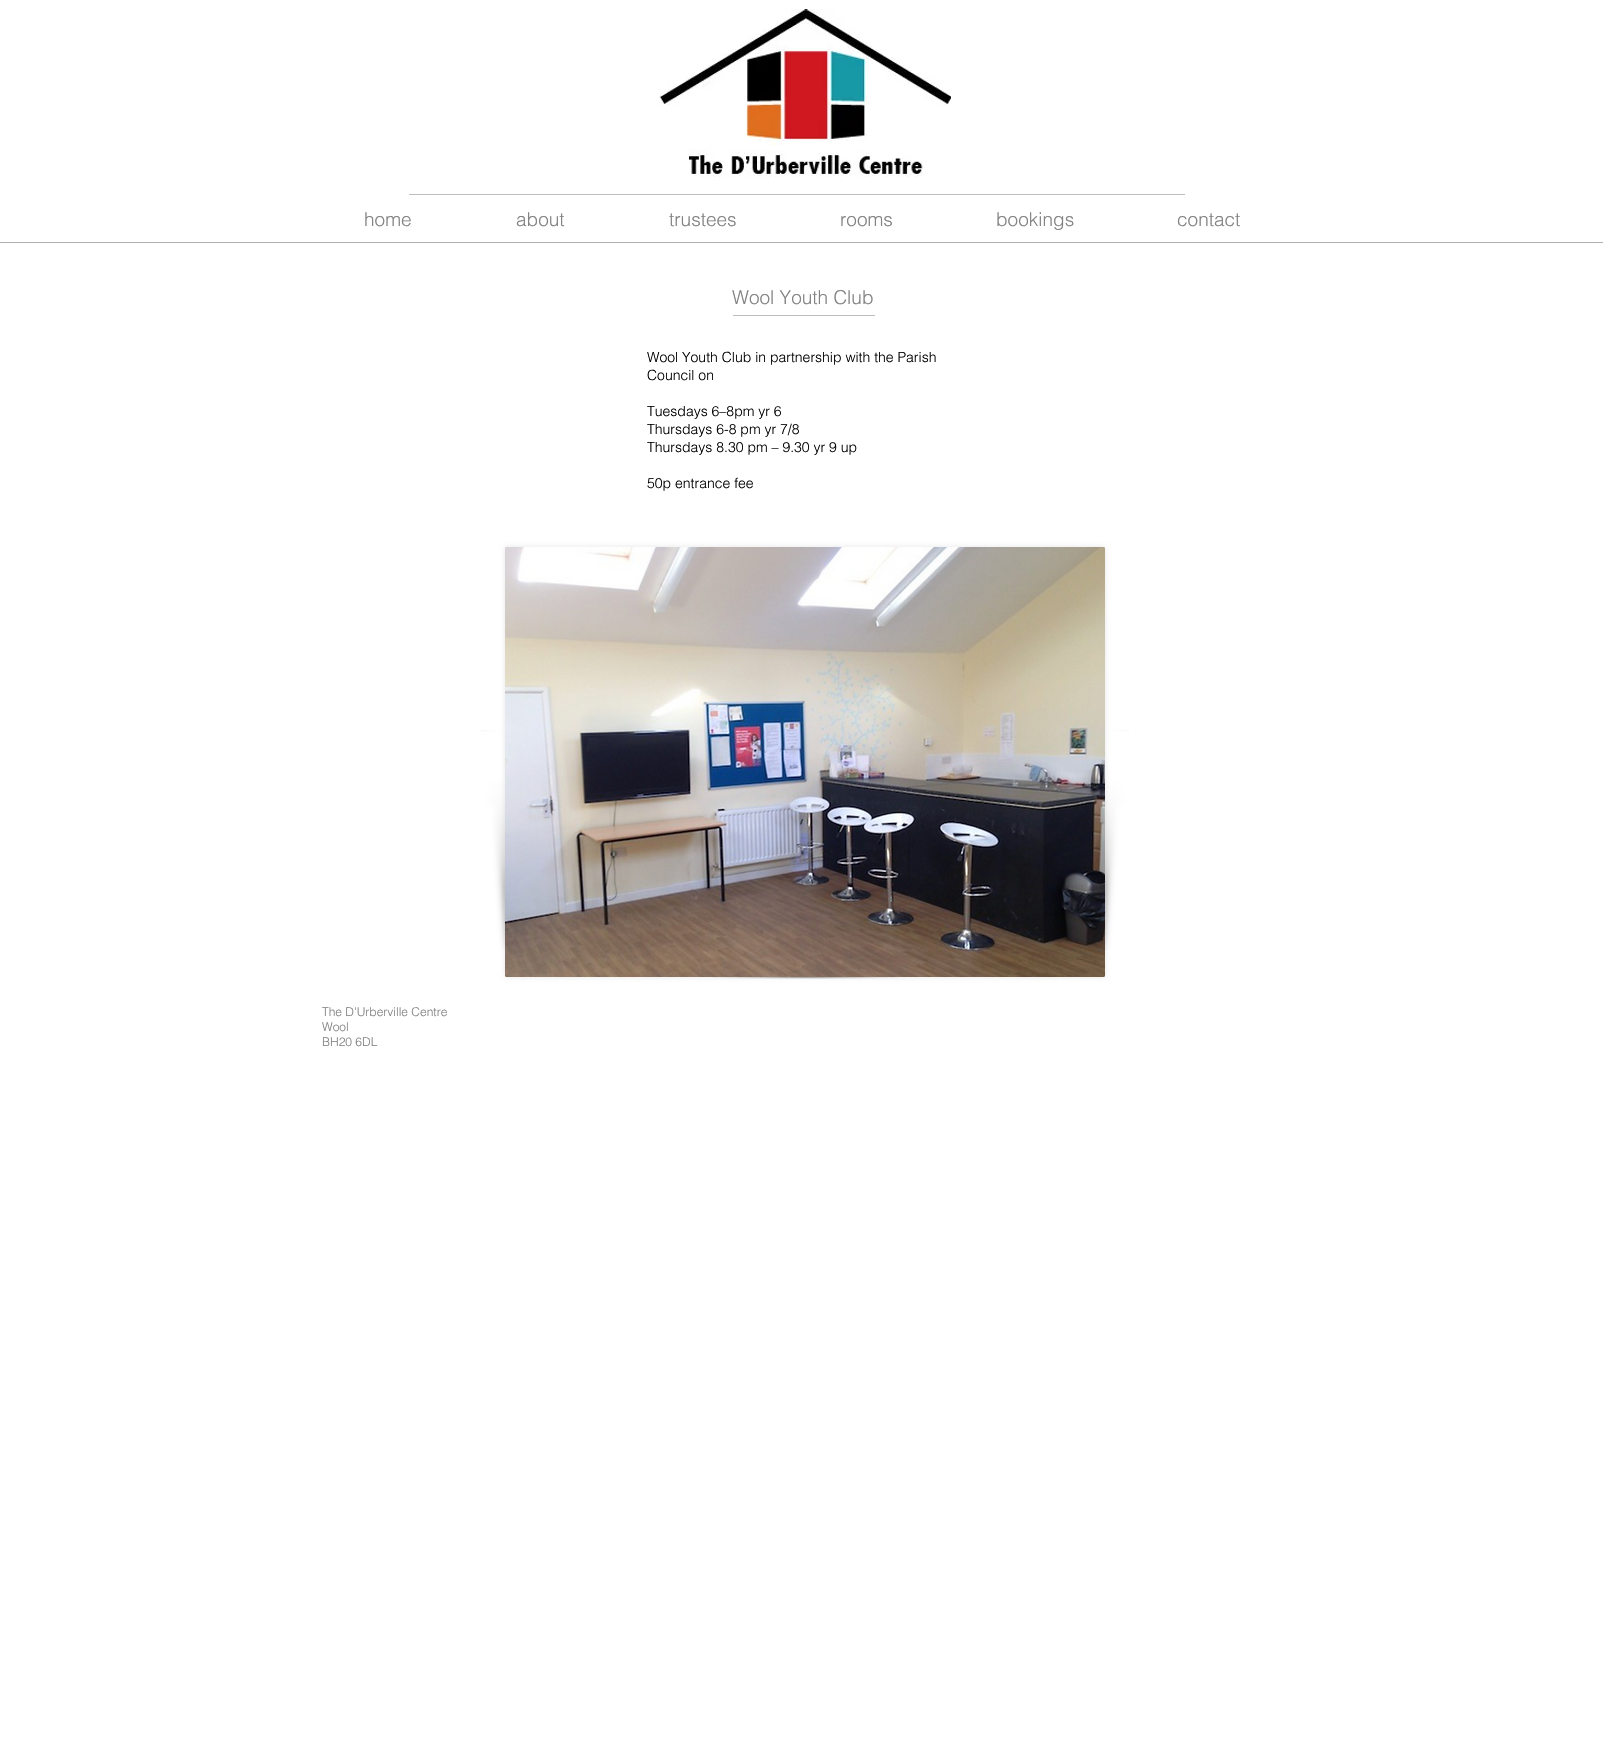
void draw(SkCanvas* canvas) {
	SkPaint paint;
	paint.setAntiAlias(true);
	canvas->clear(0xffffffff);
	canvas->drawImageRect(SkImages::DeferredFromEncodedData(SkData::MakeFromFileName("img1.png")), SkRect::MakeXYWH(659, 9, 292, 168), SkSamplingOptions());
	paint.setColor(0xffbdbdbd);
	canvas->drawRect(SkRect::MakeXYWH(409, 194, 776, 1), paint);
	SkFont f1(fontMgr->matchFamilyStyle("helvetica", SkFontStyle(300, SkFontStyle::kNormal_Width, SkFontStyle::kUpright_Slant)), 19);
	f1.setSubpixel(true);
	paint.setColor(0xff828282);
	canvas->drawString("home", 364, 226, f1, paint);
	canvas->drawString("about", 516, 226, f1, paint);
	canvas->drawString("trustees", 669, 226, f1, paint);
	canvas->drawString("rooms", 840, 226, f1, paint);
	canvas->drawString("bookings", 996, 226, f1, paint);
	canvas->drawString("contact", 1177, 226, f1, paint);
	paint.setColor(0xffafafaf);
	canvas->drawRect(SkRect::MakeXYWH(0, 242, 1603, 1), paint);
	paint.setColor(0xff828282);
	canvas->drawString("Wool Youth Club", 732, 304, f1, paint);
	paint.setColor(0xffbdbdbd);
	canvas->drawRect(SkRect::MakeXYWH(733, 315, 142, 1), paint);
	SkFont f2(fontMgr->matchFamilyStyle("helvetica", SkFontStyle(300, SkFontStyle::kNormal_Width, SkFontStyle::kUpright_Slant)), 14);
	f2.setSubpixel(true);
	paint.setColor(0xff000000);
	canvas->drawString("Wool Youth Club in partnership with the Parish", 647, 362, f2, paint);
	canvas->drawString("Council on", 647, 380, f2, paint);
	canvas->drawString("Tuesdays 6–8pm yr 6", 647, 416, f2, paint);
	canvas->drawString("Thursdays 6-8 pm yr 7/8", 647, 434, f2, paint);
	canvas->drawString("Thursdays 8.30 pm – 9.30 yr 9 up", 647, 452, f2, paint);
	canvas->drawString("50p entrance fee", 647, 488, f2, paint);
	paint.setColor(0x1a000000);
	paint.setMaskFilter(SkMaskFilter::MakeBlur(kNormal_SkBlurStyle, 2.5));
	canvas->drawRoundRect(SkRect::MakeXYWH(505, 547, 600, 430), 1, 1, paint);
	paint.setMaskFilter(nullptr);
	canvas->drawImageRect(SkImages::DeferredFromEncodedData(SkData::MakeFromFileName("img2.png")), SkRect::MakeXYWH(481, 730, 24, 220), SkSamplingOptions());
	canvas->drawImageRect(SkImages::DeferredFromEncodedData(SkData::MakeFromFileName("img3.png")), SkRect::MakeXYWH(505, 547, 600, 430), SkSamplingOptions());
	canvas->drawImageRect(SkImages::DeferredFromEncodedData(SkData::MakeFromFileName("img4.png")), SkRect::MakeXYWH(711, 977, 188, 2), SkSamplingOptions());
	canvas->drawImageRect(SkImages::DeferredFromEncodedData(SkData::MakeFromFileName("img5.png")), SkRect::MakeXYWH(1105, 730, 24, 220), SkSamplingOptions());
	SkFont f3(fontMgr->matchFamilyStyle("helvetica", SkFontStyle(300, SkFontStyle::kNormal_Width, SkFontStyle::kUpright_Slant)), 12);
	f3.setSubpixel(true);
	paint.setColor(0xff828282);
	canvas->drawString("The D'Urberville Centre", 322, 1016, f3, paint);
	canvas->drawString("Wool", 322, 1031, f3, paint);
	canvas->drawString("BH20 6DL", 322, 1046, f3, paint);
}
